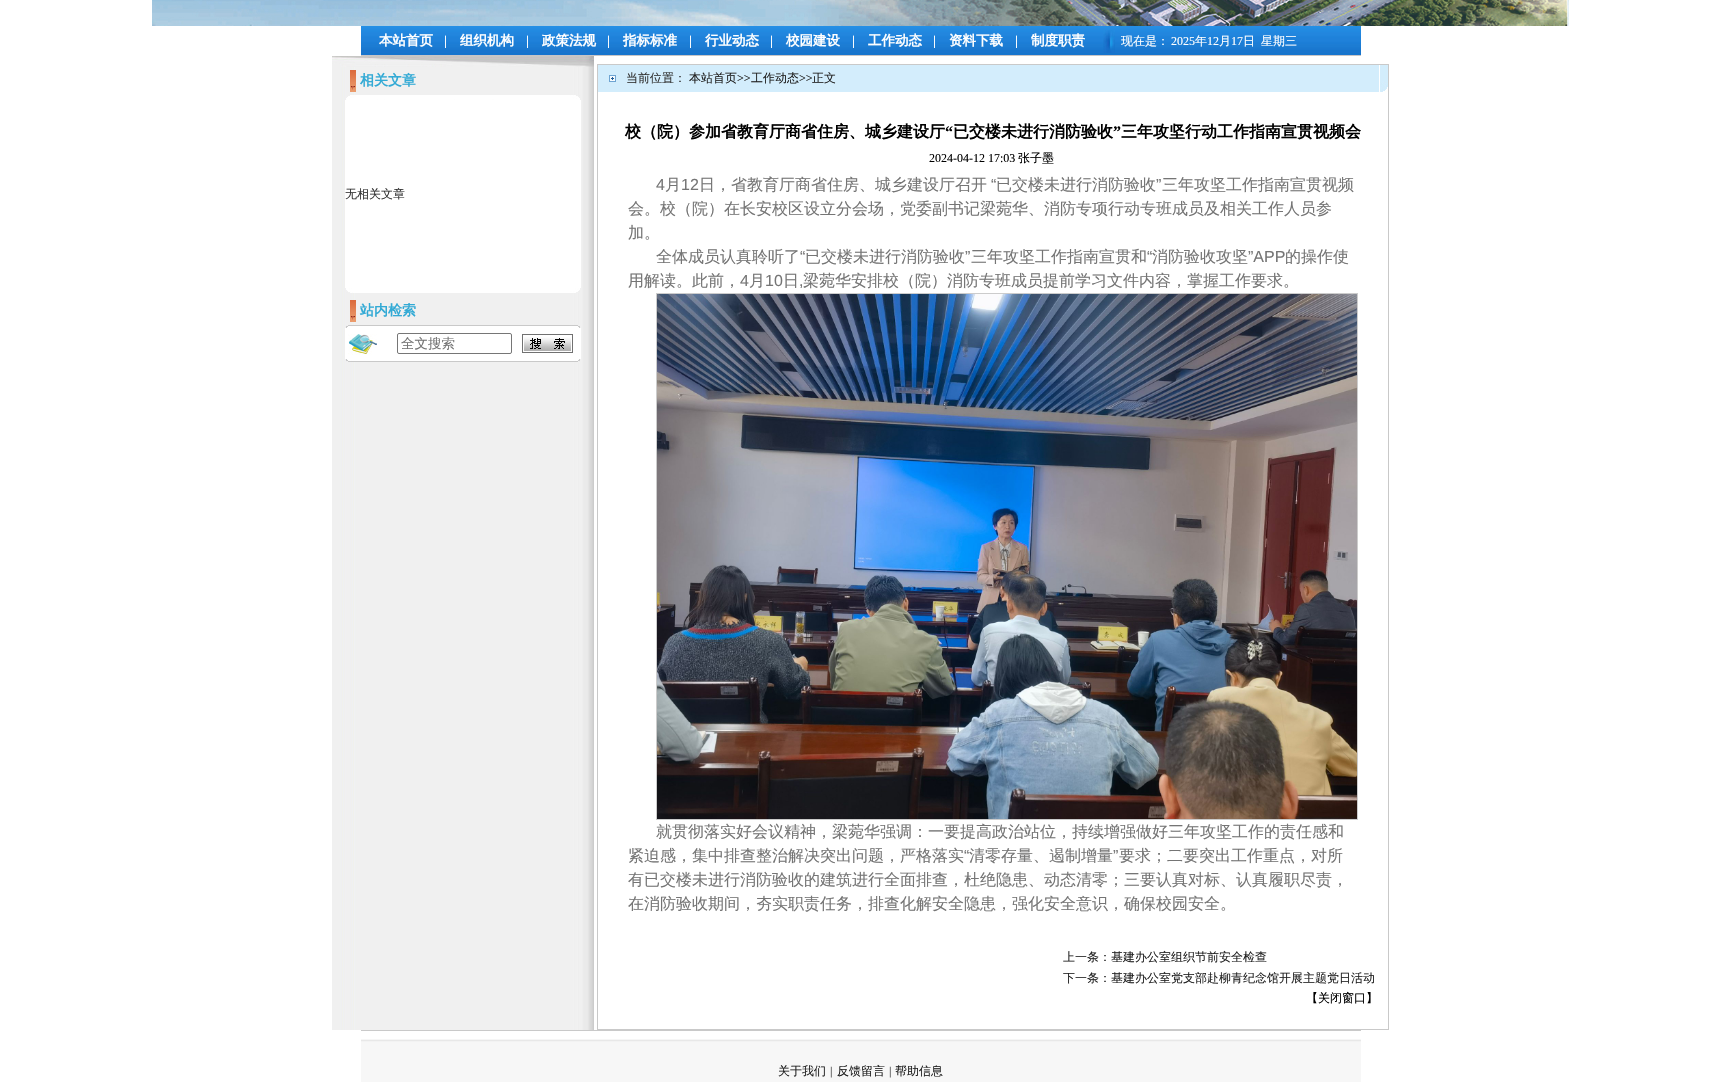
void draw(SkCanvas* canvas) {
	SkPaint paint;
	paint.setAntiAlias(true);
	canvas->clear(0xffffffff);
	canvas->drawImageRect(SkImages::DeferredFromEncodedData(SkData::MakeFromFileName("img1.png")), SkRect::MakeXYWH(152, 0, 1417, 26), SkSamplingOptions());
	canvas->drawImageRect(SkImages::DeferredFromEncodedData(SkData::MakeFromFileName("img2.png")), SkRect::MakeXYWH(361, 26, 742, 30), SkSamplingOptions());
	SkFont f1(fontMgr->matchFamilyStyle("WenQuanYi Zen Hei", SkFontStyle::Bold()), 13.5);
	f1.setSubpixel(true);
	paint.setColor(0xffffffff);
	canvas->drawString("本站首页", 379, 45, f1, paint);
	SkFont f2(fontMgr->matchFamilyStyle("Liberation Serif", SkFontStyle::Bold()), 13.5);
	f2.setSubpixel(true);
	canvas->drawString("|", 444, 45, f2, paint);
	canvas->drawString("组织机构", 460, 45, f1, paint);
	canvas->drawString("|", 526, 45, f2, paint);
	canvas->drawString("政策法规", 542, 45, f1, paint);
	canvas->drawString("|", 607, 45, f2, paint);
	canvas->drawString("指标标准", 623, 45, f1, paint);
	canvas->drawString("|", 689, 45, f2, paint);
	canvas->drawString("行业动态", 705, 45, f1, paint);
	canvas->drawString("|", 770, 45, f2, paint);
	canvas->drawString("校园建设", 786, 45, f1, paint);
	canvas->drawString("|", 852, 45, f2, paint);
	canvas->drawString("工作动态", 868, 45, f1, paint);
	canvas->drawString("|", 933, 45, f2, paint);
	canvas->drawString("资料下载", 949, 45, f1, paint);
	canvas->drawString("|", 1015, 45, f2, paint);
	canvas->drawString("制度职责", 1031, 45, f1, paint);
	canvas->drawImageRect(SkImages::DeferredFromEncodedData(SkData::MakeFromFileName("img3.png")), SkRect::MakeXYWH(1103, 26, 16, 30), SkSamplingOptions());
	canvas->drawImageRect(SkImages::DeferredFromEncodedData(SkData::MakeFromFileName("img4.png")), SkRect::MakeXYWH(1103, 30, 12, 23), SkSamplingOptions());
	canvas->drawImageRect(SkImages::DeferredFromEncodedData(SkData::MakeFromFileName("img5.png")), SkRect::MakeXYWH(1119, 26, 52, 30), SkSamplingOptions());
	SkFont f3(fontMgr->matchFamilyStyle("WenQuanYi Zen Hei", SkFontStyle(500, SkFontStyle::kNormal_Width, SkFontStyle::kUpright_Slant)), 12);
	f3.setSubpixel(true);
	canvas->drawString("现在是：", 1121, 45, f3, paint);
	canvas->drawImageRect(SkImages::DeferredFromEncodedData(SkData::MakeFromFileName("img6.png")), SkRect::MakeXYWH(1171, 26, 190, 30), SkSamplingOptions());
	SkFont f4(fontMgr->matchFamilyStyle("Liberation Serif", SkFontStyle::Normal()), 12);
	f4.setSubpixel(true);
	canvas->drawString("2025", 1171, 45, f4, paint);
	canvas->drawString("年", 1195, 45, f3, paint);
	canvas->drawString("12", 1207, 45, f4, paint);
	canvas->drawString("月", 1219, 45, f3, paint);
	canvas->drawString("17", 1231, 45, f4, paint);
	canvas->drawString("日", 1243, 45, f3, paint);
	canvas->drawString("星期三", 1261, 45, f3, paint);
	canvas->drawImageRect(SkImages::DeferredFromEncodedData(SkData::MakeFromFileName("img7.png")), SkRect::MakeXYWH(332, 67, 262, 963), SkSamplingOptions());
	canvas->drawImageRect(SkImages::DeferredFromEncodedData(SkData::MakeFromFileName("img8.png")), SkRect::MakeXYWH(332, 56, 262, 11), SkSamplingOptions());
	canvas->drawImageRect(SkImages::DeferredFromEncodedData(SkData::MakeFromFileName("img9.png")), SkRect::MakeXYWH(350, 70, 6, 22), SkSamplingOptions());
	SkFont f5(fontMgr->matchFamilyStyle("WenQuanYi Zen Hei", SkFontStyle::Bold()), 14);
	f5.setSubpixel(true);
	paint.setColor(0xff33aad5);
	canvas->drawString("相关文章", 360, 85, f5, paint);
	canvas->drawImageRect(SkImages::DeferredFromEncodedData(SkData::MakeFromFileName("img10.png")), SkRect::MakeXYWH(346, 95, 234, 5), SkSamplingOptions());
	paint.setColor(0xffffffff);
	canvas->drawRect(SkRect::MakeXYWH(345, 100, 236, 188), paint);
	paint.setColor(0xff333333);
	canvas->drawString("无相关文章", 345, 198, f3, paint);
	canvas->drawImageRect(SkImages::DeferredFromEncodedData(SkData::MakeFromFileName("img11.png")), SkRect::MakeXYWH(346, 288, 234, 5), SkSamplingOptions());
	canvas->drawImageRect(SkImages::DeferredFromEncodedData(SkData::MakeFromFileName("img9.png")), SkRect::MakeXYWH(350, 300, 6, 22), SkSamplingOptions());
	paint.setColor(0xff33aad5);
	canvas->drawString("站内检索", 360, 315, f5, paint);
	canvas->drawImageRect(SkImages::DeferredFromEncodedData(SkData::MakeFromFileName("img12.png")), SkRect::MakeXYWH(346, 325, 234, 3), SkSamplingOptions());
	paint.setColor(0xffffffff);
	canvas->drawRect(SkRect::MakeXYWH(345, 328, 236, 31), paint);
	canvas->drawImageRect(SkImages::DeferredFromEncodedData(SkData::MakeFromFileName("img13.png")), SkRect::MakeXYWH(348, 334, 29, 21), SkSamplingOptions());
	paint.setStroke(true);
	paint.setStrokeWidth(1);
	paint.setColor(0xff767676);
	canvas->drawRoundRect(SkRect::MakeXYWH(397.5, 333.5, 114, 20), 1.5, 1.5, paint);
	SkFont f6(fontMgr->matchFamilyStyle("WenQuanYi Zen Hei", SkFontStyle(500, SkFontStyle::kNormal_Width, SkFontStyle::kUpright_Slant)), 13.5);
	f6.setSubpixel(true);
	paint.setStroke(false);
	paint.setColor(0xff757575);
	canvas->drawString("全文搜索", 401, 348, f6, paint);
	canvas->drawImageRect(SkImages::DeferredFromEncodedData(SkData::MakeFromFileName("img14.png")), SkRect::MakeXYWH(522, 334, 51, 19), SkSamplingOptions());
	canvas->drawImageRect(SkImages::DeferredFromEncodedData(SkData::MakeFromFileName("img15.png")), SkRect::MakeXYWH(346, 359, 234, 3), SkSamplingOptions());
	paint.setStroke(true);
	paint.setColor(0xffc9c9c9);
	canvas->drawRect(SkRect::MakeXYWH(597.5, 64.5, 791, 965), paint);
	paint.setStroke(false);
	paint.setColor(0xffd3edfc);
	canvas->drawRect(SkRect::MakeXYWH(598, 65, 781, 27), paint);
	canvas->drawImageRect(SkImages::DeferredFromEncodedData(SkData::MakeFromFileName("img16.png")), SkRect::MakeXYWH(609, 75, 7, 7), SkSamplingOptions());
	canvas->drawImageRect(SkImages::DeferredFromEncodedData(SkData::MakeFromFileName("img17.png")), SkRect::MakeXYWH(1380, 65, 8, 27), SkSamplingOptions());
	paint.setColor(0xff333333);
	canvas->drawString("当前位置：", 626, 82, f3, paint);
	paint.setColor(0xff222222);
	canvas->drawString("本站首页", 689, 82, f3, paint);
	canvas->drawString(">>", 737, 82, f4, paint);
	canvas->drawString("工作动态", 751, 82, f3, paint);
	canvas->drawString(">>", 799, 82, f4, paint);
	canvas->drawString("正文", 812, 82, f3, paint);
	SkFont f7(fontMgr->matchFamilyStyle("WenQuanYi Zen Hei", SkFontStyle::Bold()), 16);
	f7.setSubpixel(true);
	paint.setColor(0xff000000);
	canvas->drawString("校（院）参加省教育厅商省住房、城乡建设厅", 625, 137, f7, paint);
	SkFont f8(fontMgr->matchFamilyStyle("Liberation Serif", SkFontStyle::Bold()), 16);
	f8.setSubpixel(true);
	canvas->drawString("“", 945, 137, f8, paint);
	canvas->drawString("已交楼未进行消防验收", 953, 137, f7, paint);
	canvas->drawString("”", 1113, 137, f8, paint);
	canvas->drawString("三年攻坚行动工作指南宣贯视频会", 1121, 137, f7, paint);
	canvas->drawString("2024-04-12 17:03", 929, 162, f4, paint);
	canvas->drawString("张子墨", 1018, 162, f3, paint);
	SkFont f9(fontMgr->matchFamilyStyle("Liberation Sans", SkFontStyle::Normal()), 16);
	f9.setSubpixel(true);
	paint.setColor(0xff757575);
	canvas->drawString("4", 656, 190, f9, paint);
	SkFont f10(fontMgr->matchFamilyStyle("WenQuanYi Zen Hei", SkFontStyle(500, SkFontStyle::kNormal_Width, SkFontStyle::kUpright_Slant)), 16);
	f10.setSubpixel(true);
	canvas->drawString("月", 665, 190, f10, paint);
	canvas->drawString("12", 681, 190, f9, paint);
	canvas->drawString("日，省教育厅商省住房、城乡建设厅召开", 699, 190, f10, paint);
	canvas->drawString("“", 991, 190, f9, paint);
	canvas->drawString("已交楼未进行消防验收", 996, 190, f10, paint);
	canvas->drawString("”", 1156, 190, f9, paint);
	canvas->drawString("三年攻坚工作指南宣贯视频", 1162, 190, f10, paint);
	canvas->drawString("会。校（院）在长安校区设立分会场，党委副书记梁菀华、消防专项行动专班成员及相关工作人员参", 628, 214, f10, paint);
	canvas->drawString("加。", 628, 238, f10, paint);
	canvas->drawString("全体成员认真聆听了", 656, 262, f10, paint);
	canvas->drawString("“", 800, 262, f9, paint);
	canvas->drawString("已交楼未进行消防验收", 805, 262, f10, paint);
	canvas->drawString("”", 965, 262, f9, paint);
	canvas->drawString("三年攻坚工作指南宣贯和", 971, 262, f10, paint);
	canvas->drawString("“", 1147, 262, f9, paint);
	canvas->drawString("消防验收攻坚", 1152, 262, f10, paint);
	canvas->drawString("”APP", 1248, 262, f9, paint);
	canvas->drawString("的操作使", 1285, 262, f10, paint);
	canvas->drawString("用解读。此前，", 628, 286, f10, paint);
	canvas->drawString("4", 740, 286, f9, paint);
	canvas->drawString("月", 749, 286, f10, paint);
	canvas->drawString("10", 765, 286, f9, paint);
	canvas->drawString("日", 783, 286, f10, paint);
	canvas->drawString("梁菀华安排校（院）消防专班成员提前学习文件内容，掌握工作要求。", 803, 286, f10, paint);
	canvas->drawString(",", 799, 286, f9, paint);
	paint.setStroke(true);
	paint.setColor(0xffcccccc);
	canvas->drawRect(SkRect::MakeXYWH(656.5, 293.5, 701, 526), paint);
	canvas->drawImageRect(SkImages::DeferredFromEncodedData(SkData::MakeFromFileName("img18.png")), SkRect::MakeXYWH(657, 294, 700, 525), SkSamplingOptions());
	paint.setStroke(false);
	paint.setColor(0xff757575);
	canvas->drawString("就贯彻落实好会议精神，梁菀华强调：一要提高政治站位，持续增强做好三年攻坚工作的责任感和", 656, 837, f10, paint);
	canvas->drawString("紧迫感，集中排查整治解决突出问题，严格落实", 628, 861, f10, paint);
	canvas->drawString("“", 964, 861, f9, paint);
	canvas->drawString("清零存量、遏制增量", 969, 861, f10, paint);
	canvas->drawString("”", 1113, 861, f9, paint);
	canvas->drawString("要求；二要突出工作重点，对所", 1119, 861, f10, paint);
	canvas->drawString("有已交楼未进行消防验收的建筑进行全面排查，杜绝隐患、动态清零；三要认真对标、认真履职尽责，", 628, 885, f10, paint);
	canvas->drawString("在消防验收期间，夯实职责任务，排查化解安全隐患，强化安全意识，确保校园安全。", 628, 909, f10, paint);
	paint.setColor(0xff222222);
	canvas->drawString("上一条：基建办公室组织节前安全检查", 1063, 961, f3, paint);
	canvas->drawString("下一条：基建办公室党支部赴柳青纪念馆开展主题党日活动", 1063, 982, f3, paint);
	paint.setColor(0xff000000);
	canvas->drawString("【关闭窗口】", 1306, 1002, f3, paint);
	paint.setColor(0xffc9c9c9);
	canvas->drawRect(SkRect::MakeXYWH(361, 1030, 1000, 1), paint);
	canvas->drawImageRect(SkImages::DeferredFromEncodedData(SkData::MakeFromFileName("img19.png")), SkRect::MakeXYWH(361, 1039, 1000, 11), SkSamplingOptions());
	paint.setColor(0xfff7f7f7);
	canvas->drawRect(SkRect::MakeXYWH(361, 1050, 1000, 32), paint);
	paint.setColor(0xff222222);
	canvas->drawString("关于我们", 778, 1075, f3, paint);
	paint.setColor(0xff333333);
	canvas->drawString("|", 830, 1075, f4, paint);
	paint.setColor(0xff222222);
	canvas->drawString("反馈留言", 837, 1075, f3, paint);
	paint.setColor(0xff333333);
	canvas->drawString("|", 889, 1075, f4, paint);
	paint.setColor(0xff222222);
	canvas->drawString("帮助信息", 895, 1075, f3, paint);
}
